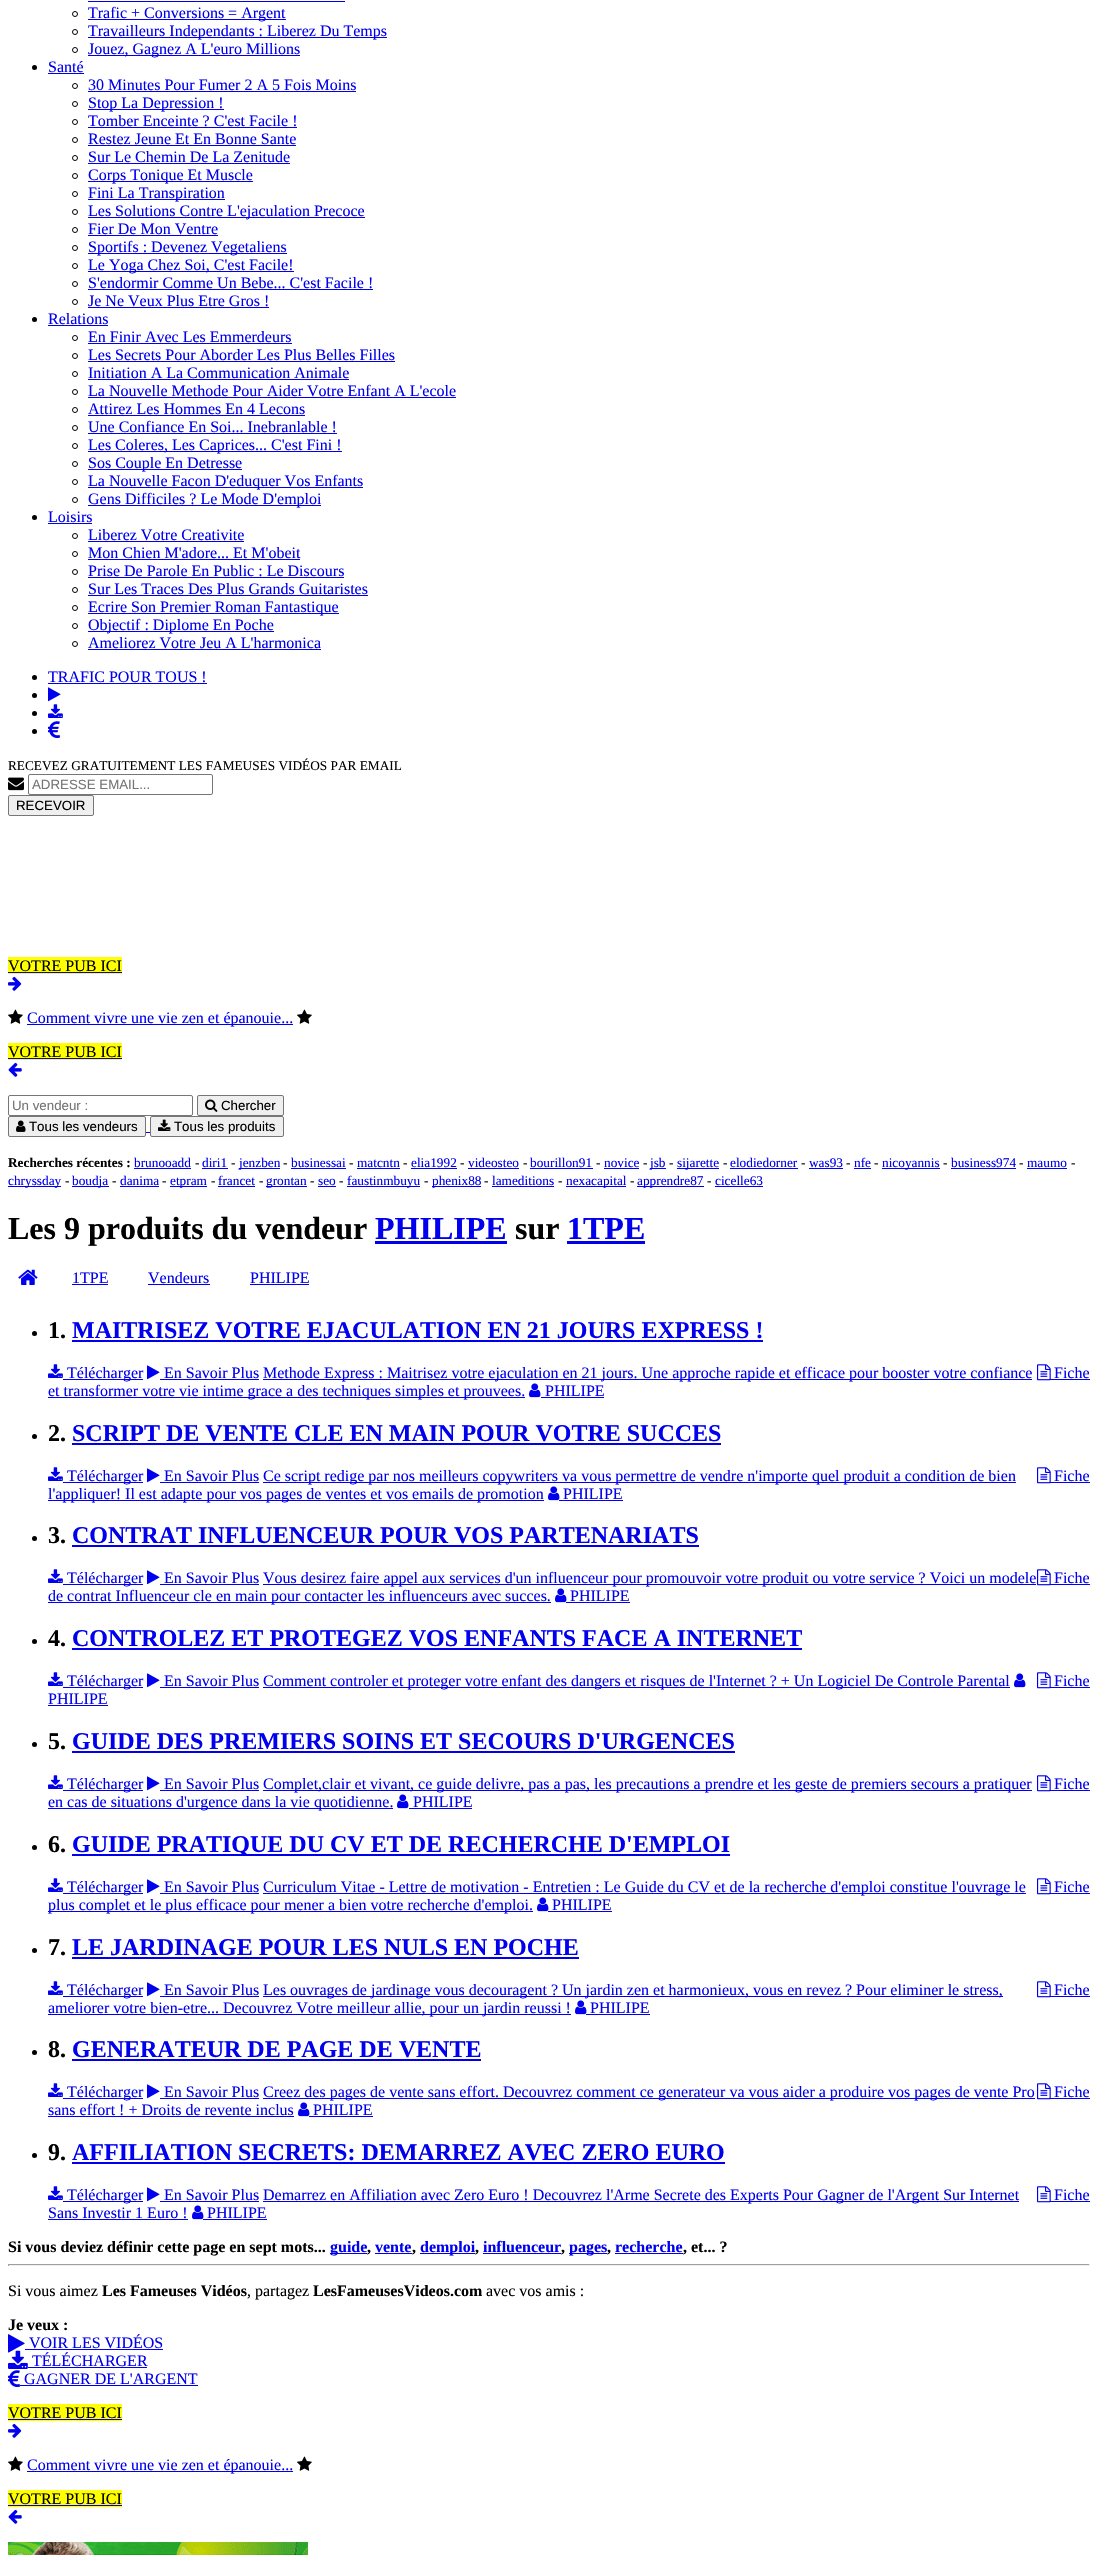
void draw(SkCanvas* canvas) {
	SkPaint paint;
	paint.setAntiAlias(true);
	canvas->clear(0xffffffff);
	paint.setColor(0xff0000ee);
	canvas->drawRect(SkRect::MakeXYWH(88, 1, 257, 1), paint);
	paint.setStroke(true);
	paint.setStrokeWidth(1);
	paint.setColor(0xff000000);
	canvas->drawCircle(75, 14, 2.5, paint);
	paint.setStroke(false);
	paint.setColor(0xff0000ee);
	canvas->drawRect(SkRect::MakeXYWH(88, 19, 198, 1), paint);
	SkFont f1(fontMgr->matchFamilyStyle("Liberation Serif", SkFontStyle::Normal()), 16);
	f1.setSubpixel(true);
	canvas->drawString("Trafic + Conversions = Argent", 88, 18, f1, paint);
	paint.setStroke(true);
	paint.setColor(0xff000000);
	canvas->drawCircle(75, 32, 2.5, paint);
	paint.setStroke(false);
	paint.setColor(0xff0000ee);
	canvas->drawRect(SkRect::MakeXYWH(88, 37, 299, 1), paint);
	canvas->drawString("Travailleurs Independants : Liberez Du Temps", 88, 36, f1, paint);
	paint.setStroke(true);
	paint.setColor(0xff000000);
	canvas->drawCircle(75, 50, 2.5, paint);
	paint.setStroke(false);
	paint.setColor(0xff0000ee);
	canvas->drawRect(SkRect::MakeXYWH(88, 55, 212, 1), paint);
	canvas->drawString("Jouez, Gagnez A L'euro Millions", 88, 54, f1, paint);
	paint.setColor(0xff000000);
	canvas->drawCircle(34.5, 67.5, 2.5, paint);
	paint.setColor(0xff0000ee);
	canvas->drawString("Santé", 48, 72, f1, paint);
	canvas->drawRect(SkRect::MakeXYWH(48, 73, 36, 1), paint);
	paint.setStroke(true);
	paint.setColor(0xff000000);
	canvas->drawCircle(75, 86, 2.5, paint);
	paint.setStroke(false);
	paint.setColor(0xff0000ee);
	canvas->drawString("30 Minutes Pour Fumer 2 A 5 Fois Moins", 88, 90, f1, paint);
	canvas->drawRect(SkRect::MakeXYWH(88, 91, 268, 1), paint);
	paint.setStroke(true);
	paint.setColor(0xff000000);
	canvas->drawCircle(75, 104, 2.5, paint);
	paint.setStroke(false);
	paint.setColor(0xff0000ee);
	canvas->drawRect(SkRect::MakeXYWH(88, 109, 136, 1), paint);
	canvas->drawString("Stop La Depression !", 88, 108, f1, paint);
	paint.setStroke(true);
	paint.setColor(0xff000000);
	canvas->drawCircle(75, 122, 2.5, paint);
	paint.setStroke(false);
	paint.setColor(0xff0000ee);
	canvas->drawString("Tomber Enceinte ? C'est Facile !", 88, 126, f1, paint);
	canvas->drawRect(SkRect::MakeXYWH(88, 127, 209, 1), paint);
	paint.setStroke(true);
	paint.setColor(0xff000000);
	canvas->drawCircle(75, 140, 2.5, paint);
	paint.setStroke(false);
	paint.setColor(0xff0000ee);
	canvas->drawString("Restez Jeune Et En Bonne Sante", 88, 144, f1, paint);
	canvas->drawRect(SkRect::MakeXYWH(88, 145, 208, 1), paint);
	paint.setStroke(true);
	paint.setColor(0xff000000);
	canvas->drawCircle(75, 158, 2.5, paint);
	paint.setStroke(false);
	paint.setColor(0xff0000ee);
	canvas->drawString("Sur Le Chemin De La Zenitude", 88, 162, f1, paint);
	canvas->drawRect(SkRect::MakeXYWH(88, 163, 202, 1), paint);
	paint.setStroke(true);
	paint.setColor(0xff000000);
	canvas->drawCircle(75, 176, 2.5, paint);
	paint.setStroke(false);
	paint.setColor(0xff0000ee);
	canvas->drawRect(SkRect::MakeXYWH(88, 181, 165, 1), paint);
	canvas->drawString("Corps Tonique Et Muscle", 88, 180, f1, paint);
	paint.setStroke(true);
	paint.setColor(0xff000000);
	canvas->drawCircle(75, 194, 2.5, paint);
	paint.setStroke(false);
	paint.setColor(0xff0000ee);
	canvas->drawRect(SkRect::MakeXYWH(88, 199, 137, 1), paint);
	canvas->drawString("Fini La Transpiration", 88, 198, f1, paint);
	paint.setStroke(true);
	paint.setColor(0xff000000);
	canvas->drawCircle(75, 212, 2.5, paint);
	paint.setStroke(false);
	paint.setColor(0xff0000ee);
	canvas->drawRect(SkRect::MakeXYWH(88, 217, 277, 1), paint);
	canvas->drawString("Les Solutions Contre L'ejaculation Precoce", 88, 216, f1, paint);
	paint.setStroke(true);
	paint.setColor(0xff000000);
	canvas->drawCircle(75, 230, 2.5, paint);
	paint.setStroke(false);
	paint.setColor(0xff0000ee);
	canvas->drawString("Fier De Mon Ventre", 88, 234, f1, paint);
	canvas->drawRect(SkRect::MakeXYWH(88, 235, 130, 1), paint);
	paint.setStroke(true);
	paint.setColor(0xff000000);
	canvas->drawCircle(75, 248, 2.5, paint);
	paint.setStroke(false);
	paint.setColor(0xff0000ee);
	canvas->drawRect(SkRect::MakeXYWH(88, 253, 199, 1), paint);
	canvas->drawString("Sportifs : Devenez Vegetaliens", 88, 252, f1, paint);
	paint.setStroke(true);
	paint.setColor(0xff000000);
	canvas->drawCircle(75, 266, 2.5, paint);
	paint.setStroke(false);
	paint.setColor(0xff0000ee);
	canvas->drawRect(SkRect::MakeXYWH(88, 271, 206, 1), paint);
	canvas->drawString("Le Yoga Chez Soi, C'est Facile!", 88, 270, f1, paint);
	paint.setStroke(true);
	paint.setColor(0xff000000);
	canvas->drawCircle(75, 284, 2.5, paint);
	paint.setStroke(false);
	paint.setColor(0xff0000ee);
	canvas->drawString("S'endormir Comme Un Bebe... C'est Facile !", 88, 288, f1, paint);
	canvas->drawRect(SkRect::MakeXYWH(88, 289, 285, 1), paint);
	paint.setStroke(true);
	paint.setColor(0xff000000);
	canvas->drawCircle(75, 302, 2.5, paint);
	paint.setStroke(false);
	paint.setColor(0xff0000ee);
	canvas->drawString("Je Ne Veux Plus Etre Gros !", 88, 306, f1, paint);
	canvas->drawRect(SkRect::MakeXYWH(88, 307, 181, 1), paint);
	paint.setColor(0xff000000);
	canvas->drawCircle(34.5, 319.5, 2.5, paint);
	paint.setColor(0xff0000ee);
	canvas->drawString("Relations", 48, 324, f1, paint);
	canvas->drawRect(SkRect::MakeXYWH(48, 325, 60, 1), paint);
	paint.setStroke(true);
	paint.setColor(0xff000000);
	canvas->drawCircle(75, 338, 2.5, paint);
	paint.setStroke(false);
	paint.setColor(0xff0000ee);
	canvas->drawString("En Finir Avec Les Emmerdeurs", 88, 342, f1, paint);
	canvas->drawRect(SkRect::MakeXYWH(88, 343, 204, 1), paint);
	paint.setStroke(true);
	paint.setColor(0xff000000);
	canvas->drawCircle(75, 356, 2.5, paint);
	paint.setStroke(false);
	paint.setColor(0xff0000ee);
	canvas->drawString("Les Secrets Pour Aborder Les Plus Belles Filles", 88, 360, f1, paint);
	canvas->drawRect(SkRect::MakeXYWH(88, 361, 307, 1), paint);
	paint.setStroke(true);
	paint.setColor(0xff000000);
	canvas->drawCircle(75, 374, 2.5, paint);
	paint.setStroke(false);
	paint.setColor(0xff0000ee);
	canvas->drawString("Initiation A La Communication Animale", 88, 378, f1, paint);
	canvas->drawRect(SkRect::MakeXYWH(88, 379, 261, 1), paint);
	paint.setStroke(true);
	paint.setColor(0xff000000);
	canvas->drawCircle(75, 392, 2.5, paint);
	paint.setStroke(false);
	paint.setColor(0xff0000ee);
	canvas->drawString("La Nouvelle Methode Pour Aider Votre Enfant A L'ecole", 88, 396, f1, paint);
	canvas->drawRect(SkRect::MakeXYWH(88, 397, 368, 1), paint);
	paint.setStroke(true);
	paint.setColor(0xff000000);
	canvas->drawCircle(75, 410, 2.5, paint);
	paint.setStroke(false);
	paint.setColor(0xff0000ee);
	canvas->drawString("Attirez Les Hommes En 4 Lecons", 88, 414, f1, paint);
	canvas->drawRect(SkRect::MakeXYWH(88, 415, 217, 1), paint);
	paint.setStroke(true);
	paint.setColor(0xff000000);
	canvas->drawCircle(75, 428, 2.5, paint);
	paint.setStroke(false);
	paint.setColor(0xff0000ee);
	canvas->drawString("Une Confiance En Soi... Inebranlable !", 88, 432, f1, paint);
	canvas->drawRect(SkRect::MakeXYWH(88, 433, 249, 1), paint);
	paint.setStroke(true);
	paint.setColor(0xff000000);
	canvas->drawCircle(75, 446, 2.5, paint);
	paint.setStroke(false);
	paint.setColor(0xff0000ee);
	canvas->drawRect(SkRect::MakeXYWH(88, 451, 254, 1), paint);
	canvas->drawString("Les Coleres, Les Caprices... C'est Fini !", 88, 450, f1, paint);
	paint.setStroke(true);
	paint.setColor(0xff000000);
	canvas->drawCircle(75, 464, 2.5, paint);
	paint.setStroke(false);
	paint.setColor(0xff0000ee);
	canvas->drawRect(SkRect::MakeXYWH(88, 469, 154, 1), paint);
	canvas->drawString("Sos Couple En Detresse", 88, 468, f1, paint);
	paint.setStroke(true);
	paint.setColor(0xff000000);
	canvas->drawCircle(75, 482, 2.5, paint);
	paint.setStroke(false);
	paint.setColor(0xff0000ee);
	canvas->drawRect(SkRect::MakeXYWH(88, 487, 275, 1), paint);
	canvas->drawString("La Nouvelle Facon D'eduquer Vos Enfants", 88, 486, f1, paint);
	paint.setStroke(true);
	paint.setColor(0xff000000);
	canvas->drawCircle(75, 500, 2.5, paint);
	paint.setStroke(false);
	paint.setColor(0xff0000ee);
	canvas->drawRect(SkRect::MakeXYWH(88, 505, 233, 1), paint);
	canvas->drawString("Gens Difficiles ? Le Mode D'emploi", 88, 504, f1, paint);
	paint.setColor(0xff000000);
	canvas->drawCircle(34.5, 517.5, 2.5, paint);
	paint.setColor(0xff0000ee);
	canvas->drawString("Loisirs", 48, 522, f1, paint);
	canvas->drawRect(SkRect::MakeXYWH(48, 523, 44, 1), paint);
	paint.setStroke(true);
	paint.setColor(0xff000000);
	canvas->drawCircle(75, 536, 2.5, paint);
	paint.setStroke(false);
	paint.setColor(0xff0000ee);
	canvas->drawString("Liberez Votre Creativite", 88, 540, f1, paint);
	canvas->drawRect(SkRect::MakeXYWH(88, 541, 156, 1), paint);
	paint.setStroke(true);
	paint.setColor(0xff000000);
	canvas->drawCircle(75, 554, 2.5, paint);
	paint.setStroke(false);
	paint.setColor(0xff0000ee);
	canvas->drawString("Mon Chien M'adore... Et M'obeit", 88, 558, f1, paint);
	canvas->drawRect(SkRect::MakeXYWH(88, 559, 212, 1), paint);
	paint.setStroke(true);
	paint.setColor(0xff000000);
	canvas->drawCircle(75, 572, 2.5, paint);
	paint.setStroke(false);
	paint.setColor(0xff0000ee);
	canvas->drawString("Prise De Parole En Public : Le Discours", 88, 576, f1, paint);
	canvas->drawRect(SkRect::MakeXYWH(88, 577, 256, 1), paint);
	paint.setStroke(true);
	paint.setColor(0xff000000);
	canvas->drawCircle(75, 590, 2.5, paint);
	paint.setStroke(false);
	paint.setColor(0xff0000ee);
	canvas->drawString("Sur Les Traces Des Plus Grands Guitaristes", 88, 594, f1, paint);
	canvas->drawRect(SkRect::MakeXYWH(88, 595, 280, 1), paint);
	paint.setStroke(true);
	paint.setColor(0xff000000);
	canvas->drawCircle(75, 608, 2.5, paint);
	paint.setStroke(false);
	paint.setColor(0xff0000ee);
	canvas->drawRect(SkRect::MakeXYWH(88, 613, 251, 1), paint);
	canvas->drawString("Ecrire Son Premier Roman Fantastique", 88, 612, f1, paint);
	paint.setStroke(true);
	paint.setColor(0xff000000);
	canvas->drawCircle(75, 626, 2.5, paint);
	paint.setStroke(false);
	paint.setColor(0xff0000ee);
	canvas->drawRect(SkRect::MakeXYWH(88, 631, 186, 1), paint);
	canvas->drawString("Objectif : Diplome En Poche", 88, 630, f1, paint);
	paint.setStroke(true);
	paint.setColor(0xff000000);
	canvas->drawCircle(75, 644, 2.5, paint);
	paint.setStroke(false);
	paint.setColor(0xff0000ee);
	canvas->drawString("Ameliorez Votre Jeu A L'harmonica", 88, 648, f1, paint);
	canvas->drawRect(SkRect::MakeXYWH(88, 649, 233, 1), paint);
	paint.setColor(0xff000000);
	canvas->drawCircle(34.5, 677.5, 2.5, paint);
	paint.setColor(0xff0000ee);
	canvas->drawString("TRAFIC POUR TOUS !", 48, 682, f1, paint);
	canvas->drawRect(SkRect::MakeXYWH(48, 683, 159, 1), paint);
	paint.setColor(0xff000000);
	canvas->drawCircle(34.5, 695.5, 2.5, paint);
	canvas->drawImageRect(SkImages::DeferredFromEncodedData(SkData::MakeFromFileName("img1.png")), SkRect::MakeXYWH(48, 687, 13, 15), SkSamplingOptions());
	canvas->drawCircle(34.5, 713.5, 2.5, paint);
	canvas->drawImageRect(SkImages::DeferredFromEncodedData(SkData::MakeFromFileName("img2.png")), SkRect::MakeXYWH(48, 704, 15, 14), SkSamplingOptions());
	canvas->drawCircle(34.5, 731.5, 2.5, paint);
	canvas->drawImageRect(SkImages::DeferredFromEncodedData(SkData::MakeFromFileName("img3.png")), SkRect::MakeXYWH(48, 721, 12, 17), SkSamplingOptions());
	SkFont f2(fontMgr->matchFamilyStyle("Liberation Serif", SkFontStyle::Normal()), 13.3);
	f2.setSubpixel(true);
	canvas->drawString("RECEVEZ GRATUITEMENT LES FAMEUSES VIDÉOS PAR EMAIL", 8, 770, f2, paint);
	canvas->drawImageRect(SkImages::DeferredFromEncodedData(SkData::MakeFromFileName("img4.png")), SkRect::MakeXYWH(8, 777, 16, 14), SkSamplingOptions());
	paint.setStroke(true);
	paint.setColor(0xff767676);
	canvas->drawRoundRect(SkRect::MakeXYWH(28.5, 774.5, 184, 20), 1.5, 1.5, paint);
	SkFont f3(fontMgr->matchFamilyStyle("Liberation Sans", SkFontStyle::Normal()), 13.3);
	f3.setSubpixel(true);
	paint.setStroke(false);
	paint.setColor(0xff757575);
	canvas->drawString("ADRESSE EMAIL...", 32, 789, f3, paint);
	paint.setColor(0xffefefef);
	canvas->drawRoundRect(SkRect::MakeXYWH(8.5, 795.5, 85, 20), 1.5, 1.5, paint);
	paint.setStroke(true);
	paint.setColor(0xff767676);
	canvas->drawRoundRect(SkRect::MakeXYWH(8.5, 795.5, 85, 20), 1.5, 1.5, paint);
	paint.setStroke(false);
	paint.setColor(0xff000000);
	canvas->drawString("RECEVOIR", 16, 810, f3, paint);
	paint.setColor(0xffffff00);
	canvas->drawRect(SkRect::MakeXYWH(8, 957, 114, 17), paint);
	paint.setColor(0xff000000);
	canvas->drawString("VOTRE PUB ICI", 8, 971, f1, paint);
	paint.setColor(0xff0000ee);
	canvas->drawRect(SkRect::MakeXYWH(8, 972, 114, 1), paint);
	canvas->drawImageRect(SkImages::DeferredFromEncodedData(SkData::MakeFromFileName("img5.png")), SkRect::MakeXYWH(8, 976, 14, 15), SkSamplingOptions());
	canvas->drawImageRect(SkImages::DeferredFromEncodedData(SkData::MakeFromFileName("img6.png")), SkRect::MakeXYWH(8, 1009, 15, 15), SkSamplingOptions());
	canvas->drawRect(SkRect::MakeXYWH(27, 1024, 266, 1), paint);
	canvas->drawString("Comment vivre une vie zen et épanouie...", 27, 1023, f1, paint);
	canvas->drawImageRect(SkImages::DeferredFromEncodedData(SkData::MakeFromFileName("img6.png")), SkRect::MakeXYWH(297, 1009, 15, 15), SkSamplingOptions());
	paint.setColor(0xffffff00);
	canvas->drawRect(SkRect::MakeXYWH(8, 1043, 114, 17), paint);
	paint.setColor(0xff000000);
	canvas->drawString("VOTRE PUB ICI", 8, 1057, f1, paint);
	paint.setColor(0xff0000ee);
	canvas->drawRect(SkRect::MakeXYWH(8, 1058, 114, 1), paint);
	canvas->drawImageRect(SkImages::DeferredFromEncodedData(SkData::MakeFromFileName("img7.png")), SkRect::MakeXYWH(8, 1062, 14, 15), SkSamplingOptions());
	paint.setStroke(true);
	paint.setColor(0xff767676);
	canvas->drawRoundRect(SkRect::MakeXYWH(8.5, 1095.5, 184, 20), 1.5, 1.5, paint);
	paint.setStroke(false);
	paint.setColor(0xff757575);
	canvas->drawString("Un vendeur :", 12, 1110, f3, paint);
	paint.setColor(0xffefefef);
	canvas->drawRoundRect(SkRect::MakeXYWH(197.5, 1095.5, 86, 20), 1.5, 1.5, paint);
	paint.setStroke(true);
	paint.setColor(0xff767676);
	canvas->drawRoundRect(SkRect::MakeXYWH(197.5, 1095.5, 86, 20), 1.5, 1.5, paint);
	canvas->drawImageRect(SkImages::DeferredFromEncodedData(SkData::MakeFromFileName("img8.png")), SkRect::MakeXYWH(205, 1099, 13, 13), SkSamplingOptions());
	paint.setStroke(false);
	paint.setColor(0xff000000);
	canvas->drawString("Chercher", 221, 1110, f3, paint);
	paint.setColor(0xffefefef);
	canvas->drawRoundRect(SkRect::MakeXYWH(8.5, 1116.5, 137, 20), 1.5, 1.5, paint);
	paint.setStroke(true);
	paint.setColor(0xff767676);
	canvas->drawRoundRect(SkRect::MakeXYWH(8.5, 1116.5, 137, 20), 1.5, 1.5, paint);
	canvas->drawImageRect(SkImages::DeferredFromEncodedData(SkData::MakeFromFileName("img9.png")), SkRect::MakeXYWH(16, 1120, 10, 12), SkSamplingOptions());
	paint.setStroke(false);
	paint.setColor(0xff000000);
	canvas->drawString("Tous les vendeurs", 29, 1131, f3, paint);
	paint.setColor(0xff0000ee);
	canvas->drawRect(SkRect::MakeXYWH(146, 1132, 4, 1), paint);
	paint.setColor(0xffefefef);
	canvas->drawRoundRect(SkRect::MakeXYWH(150.5, 1116.5, 133, 20), 1.5, 1.5, paint);
	paint.setStroke(true);
	paint.setColor(0xff767676);
	canvas->drawRoundRect(SkRect::MakeXYWH(150.5, 1116.5, 133, 20), 1.5, 1.5, paint);
	canvas->drawImageRect(SkImages::DeferredFromEncodedData(SkData::MakeFromFileName("img10.png")), SkRect::MakeXYWH(158, 1119, 13, 12), SkSamplingOptions());
	paint.setStroke(false);
	paint.setColor(0xff000000);
	canvas->drawString("Tous les produits", 174, 1131, f3, paint);
	SkFont f4(fontMgr->matchFamilyStyle("Liberation Serif", SkFontStyle::Bold()), 13.3);
	f4.setSubpixel(true);
	canvas->drawString("Recherches récentes :", 8, 1167, f4, paint);
	paint.setColor(0xff0000ee);
	canvas->drawString("brunooadd", 134, 1167, f2, paint);
	canvas->drawRect(SkRect::MakeXYWH(134, 1168, 57, 1), paint);
	paint.setColor(0xff000000);
	canvas->drawString("-", 195, 1167, f2, paint);
	paint.setColor(0xff0000ee);
	canvas->drawRect(SkRect::MakeXYWH(202, 1168, 26, 1), paint);
	canvas->drawString("diri1", 202, 1167, f2, paint);
	paint.setColor(0xff000000);
	canvas->drawString("-", 231, 1167, f2, paint);
	paint.setColor(0xff0000ee);
	canvas->drawRect(SkRect::MakeXYWH(239, 1168, 41, 1), paint);
	canvas->drawString("jenzben", 239, 1167, f2, paint);
	paint.setColor(0xff000000);
	canvas->drawString("-", 283, 1167, f2, paint);
	paint.setColor(0xff0000ee);
	canvas->drawRect(SkRect::MakeXYWH(291, 1168, 55, 1), paint);
	canvas->drawString("businessai", 291, 1167, f2, paint);
	paint.setColor(0xff000000);
	canvas->drawString("-", 349, 1167, f2, paint);
	paint.setColor(0xff0000ee);
	canvas->drawString("matcntn", 357, 1167, f2, paint);
	canvas->drawRect(SkRect::MakeXYWH(357, 1168, 43, 1), paint);
	paint.setColor(0xff000000);
	canvas->drawString("-", 403, 1167, f2, paint);
	paint.setColor(0xff0000ee);
	canvas->drawRect(SkRect::MakeXYWH(411, 1168, 46, 1), paint);
	canvas->drawString("elia1992", 411, 1167, f2, paint);
	paint.setColor(0xff000000);
	canvas->drawString("-", 460, 1167, f2, paint);
	paint.setColor(0xff0000ee);
	canvas->drawRect(SkRect::MakeXYWH(468, 1168, 51, 1), paint);
	canvas->drawString("videosteo", 468, 1167, f2, paint);
	paint.setColor(0xff000000);
	canvas->drawString("-", 523, 1167, f2, paint);
	paint.setColor(0xff0000ee);
	canvas->drawRect(SkRect::MakeXYWH(530, 1168, 63, 1), paint);
	canvas->drawString("bourillon91", 530, 1167, f2, paint);
	paint.setColor(0xff000000);
	canvas->drawString("-", 596, 1167, f2, paint);
	paint.setColor(0xff0000ee);
	canvas->drawString("novice", 604, 1167, f2, paint);
	canvas->drawRect(SkRect::MakeXYWH(604, 1168, 35, 1), paint);
	paint.setColor(0xff000000);
	canvas->drawString("-", 643, 1167, f2, paint);
	paint.setColor(0xff0000ee);
	canvas->drawRect(SkRect::MakeXYWH(650, 1168, 16, 1), paint);
	canvas->drawString("jsb", 650, 1167, f2, paint);
	paint.setColor(0xff000000);
	canvas->drawString("-", 669, 1167, f2, paint);
	paint.setColor(0xff0000ee);
	canvas->drawRect(SkRect::MakeXYWH(677, 1168, 42, 1), paint);
	canvas->drawString("sijarette", 677, 1167, f2, paint);
	paint.setColor(0xff000000);
	canvas->drawString("-", 723, 1167, f2, paint);
	paint.setColor(0xff0000ee);
	canvas->drawRect(SkRect::MakeXYWH(730, 1168, 68, 1), paint);
	canvas->drawString("elodiedorner", 730, 1167, f2, paint);
	paint.setColor(0xff000000);
	canvas->drawString("-", 801, 1167, f2, paint);
	paint.setColor(0xff0000ee);
	canvas->drawString("was93", 809, 1167, f2, paint);
	canvas->drawRect(SkRect::MakeXYWH(809, 1168, 34, 1), paint);
	paint.setColor(0xff000000);
	canvas->drawString("-", 846, 1167, f2, paint);
	paint.setColor(0xff0000ee);
	canvas->drawRect(SkRect::MakeXYWH(854, 1168, 17, 1), paint);
	canvas->drawString("nfe", 854, 1167, f2, paint);
	paint.setColor(0xff000000);
	canvas->drawString("-", 874, 1167, f2, paint);
	paint.setColor(0xff0000ee);
	canvas->drawRect(SkRect::MakeXYWH(882, 1168, 58, 1), paint);
	canvas->drawString("nicoyannis", 882, 1167, f2, paint);
	paint.setColor(0xff000000);
	canvas->drawString("-", 943, 1167, f2, paint);
	paint.setColor(0xff0000ee);
	canvas->drawRect(SkRect::MakeXYWH(951, 1168, 65, 1), paint);
	canvas->drawString("business974", 951, 1167, f2, paint);
	paint.setColor(0xff000000);
	canvas->drawString("-", 1019, 1167, f2, paint);
	paint.setColor(0xff0000ee);
	canvas->drawString("maumo", 1027, 1167, f2, paint);
	canvas->drawRect(SkRect::MakeXYWH(1027, 1168, 40, 1), paint);
	paint.setColor(0xff000000);
	canvas->drawString("-", 1071, 1167, f2, paint);
	paint.setColor(0xff0000ee);
	canvas->drawRect(SkRect::MakeXYWH(8, 1186, 53, 1), paint);
	canvas->drawString("chryssday", 8, 1185, f2, paint);
	paint.setColor(0xff000000);
	canvas->drawString("-", 65, 1185, f2, paint);
	paint.setColor(0xff0000ee);
	canvas->drawRect(SkRect::MakeXYWH(72, 1186, 37, 1), paint);
	canvas->drawString("boudja", 72, 1185, f2, paint);
	paint.setColor(0xff000000);
	canvas->drawString("-", 112, 1185, f2, paint);
	paint.setColor(0xff0000ee);
	canvas->drawString("danima", 120, 1185, f2, paint);
	canvas->drawRect(SkRect::MakeXYWH(120, 1186, 39, 1), paint);
	paint.setColor(0xff000000);
	canvas->drawString("-", 162, 1185, f2, paint);
	paint.setColor(0xff0000ee);
	canvas->drawRect(SkRect::MakeXYWH(170, 1186, 37, 1), paint);
	canvas->drawString("etpram", 170, 1185, f2, paint);
	paint.setColor(0xff000000);
	canvas->drawString("-", 211, 1185, f2, paint);
	paint.setColor(0xff0000ee);
	canvas->drawRect(SkRect::MakeXYWH(218, 1186, 37, 1), paint);
	canvas->drawString("francet", 218, 1185, f2, paint);
	paint.setColor(0xff000000);
	canvas->drawString("-", 259, 1185, f2, paint);
	paint.setColor(0xff0000ee);
	canvas->drawRect(SkRect::MakeXYWH(266, 1186, 41, 1), paint);
	canvas->drawString("grontan", 266, 1185, f2, paint);
	paint.setColor(0xff000000);
	canvas->drawString("-", 310, 1185, f2, paint);
	paint.setColor(0xff0000ee);
	canvas->drawString("seo", 318, 1185, f2, paint);
	canvas->drawRect(SkRect::MakeXYWH(318, 1186, 18, 1), paint);
	paint.setColor(0xff000000);
	canvas->drawString("-", 339, 1185, f2, paint);
	paint.setColor(0xff0000ee);
	canvas->drawRect(SkRect::MakeXYWH(347, 1186, 73, 1), paint);
	canvas->drawString("faustinmbuyu", 347, 1185, f2, paint);
	paint.setColor(0xff000000);
	canvas->drawString("-", 424, 1185, f2, paint);
	paint.setColor(0xff0000ee);
	canvas->drawRect(SkRect::MakeXYWH(432, 1186, 49, 1), paint);
	canvas->drawString("phenix88", 432, 1185, f2, paint);
	paint.setColor(0xff000000);
	canvas->drawString("-", 484, 1185, f2, paint);
	paint.setColor(0xff0000ee);
	canvas->drawRect(SkRect::MakeXYWH(492, 1186, 62, 1), paint);
	canvas->drawString("lameditions", 492, 1185, f2, paint);
	paint.setColor(0xff000000);
	canvas->drawString("-", 558, 1185, f2, paint);
	paint.setColor(0xff0000ee);
	canvas->drawRect(SkRect::MakeXYWH(566, 1186, 60, 1), paint);
	canvas->drawString("nexacapital", 566, 1185, f2, paint);
	paint.setColor(0xff000000);
	canvas->drawString("-", 630, 1185, f2, paint);
	paint.setColor(0xff0000ee);
	canvas->drawRect(SkRect::MakeXYWH(637, 1186, 67, 1), paint);
	canvas->drawString("apprendre87", 637, 1185, f2, paint);
	paint.setColor(0xff000000);
	canvas->drawString("-", 707, 1185, f2, paint);
	paint.setColor(0xff0000ee);
	canvas->drawRect(SkRect::MakeXYWH(715, 1186, 48, 1), paint);
	canvas->drawString("cicelle63", 715, 1185, f2, paint);
	SkFont f5(fontMgr->matchFamilyStyle("Liberation Serif", SkFontStyle::Bold()), 32);
	f5.setSubpixel(true);
	paint.setColor(0xff000000);
	canvas->drawString("Les 9 produits du vendeur", 8, 1239, f5, paint);
	paint.setColor(0xff0000ee);
	canvas->drawString("PHILIPE", 375, 1239, f5, paint);
	canvas->drawRect(SkRect::MakeXYWH(375, 1241, 132, 3), paint);
	paint.setColor(0xff000000);
	canvas->drawString("sur", 515, 1239, f5, paint);
	paint.setColor(0xff0000ee);
	canvas->drawString("1TPE", 567, 1239, f5, paint);
	canvas->drawRect(SkRect::MakeXYWH(567, 1241, 78, 3), paint);
	canvas->drawImageRect(SkImages::DeferredFromEncodedData(SkData::MakeFromFileName("img11.png")), SkRect::MakeXYWH(18, 1269, 20, 16), SkSamplingOptions());
	canvas->drawString("1TPE", 72, 1283, f1, paint);
	canvas->drawRect(SkRect::MakeXYWH(72, 1284, 36, 1), paint);
	canvas->drawString("Vendeurs", 148, 1283, f1, paint);
	canvas->drawRect(SkRect::MakeXYWH(148, 1284, 62, 1), paint);
	canvas->drawString("PHILIPE", 250, 1283, f1, paint);
	canvas->drawRect(SkRect::MakeXYWH(250, 1284, 59, 1), paint);
	paint.setColor(0xff000000);
	canvas->drawCircle(34.5, 1333.5, 2.5, paint);
	SkFont f6(fontMgr->matchFamilyStyle("Liberation Serif", SkFontStyle::Bold()), 24);
	f6.setSubpixel(true);
	canvas->drawString("1.", 48, 1338, f6, paint);
	paint.setColor(0xff0000ee);
	canvas->drawString("MAITRISEZ VOTRE EJACULATION EN 21 JOURS EXPRESS !", 72, 1338, f6, paint);
	canvas->drawRect(SkRect::MakeXYWH(72, 1340, 691, 2), paint);
	canvas->drawImageRect(SkImages::DeferredFromEncodedData(SkData::MakeFromFileName("img2.png")), SkRect::MakeXYWH(48, 1364, 15, 14), SkSamplingOptions());
	canvas->drawRect(SkRect::MakeXYWH(63, 1379, 80, 1), paint);
	canvas->drawString("Télécharger", 67, 1378, f1, paint);
	canvas->drawImageRect(SkImages::DeferredFromEncodedData(SkData::MakeFromFileName("img1.png")), SkRect::MakeXYWH(147, 1365, 13, 15), SkSamplingOptions());
	canvas->drawString("En Savoir Plus", 164, 1378, f1, paint);
	canvas->drawRect(SkRect::MakeXYWH(160, 1379, 99, 1), paint);
	canvas->drawRect(SkRect::MakeXYWH(263, 1379, 769, 1), paint);
	canvas->drawString("Methode Express : Maitrisez votre ejaculation en 21 jours. Une approche rapide et efficace pour booster votre confiance", 263, 1378, f1, paint);
	canvas->drawRect(SkRect::MakeXYWH(48, 1397, 477, 1), paint);
	canvas->drawString("et transformer votre vie intime grace a des techniques simples et prouvees.", 48, 1396, f1, paint);
	canvas->drawImageRect(SkImages::DeferredFromEncodedData(SkData::MakeFromFileName("img12.png")), SkRect::MakeXYWH(529, 1383, 12, 15), SkSamplingOptions());
	canvas->drawString("PHILIPE", 545, 1396, f1, paint);
	canvas->drawRect(SkRect::MakeXYWH(541, 1397, 63, 1), paint);
	canvas->drawImageRect(SkImages::DeferredFromEncodedData(SkData::MakeFromFileName("img13.png")), SkRect::MakeXYWH(1037, 1364, 14, 17), SkSamplingOptions());
	canvas->drawString("Fiche", 1054, 1378, f1, paint);
	canvas->drawRect(SkRect::MakeXYWH(1050, 1379, 40, 1), paint);
	paint.setColor(0xff000000);
	canvas->drawCircle(34.5, 1436.5, 2.5, paint);
	canvas->drawString("2.", 48, 1441, f6, paint);
	paint.setColor(0xff0000ee);
	canvas->drawString("SCRIPT DE VENTE CLE EN MAIN POUR VOTRE SUCCES", 72, 1441, f6, paint);
	canvas->drawRect(SkRect::MakeXYWH(72, 1443, 649, 2), paint);
	canvas->drawImageRect(SkImages::DeferredFromEncodedData(SkData::MakeFromFileName("img2.png")), SkRect::MakeXYWH(48, 1467, 15, 14), SkSamplingOptions());
	canvas->drawRect(SkRect::MakeXYWH(63, 1482, 80, 1), paint);
	canvas->drawString("Télécharger", 67, 1481, f1, paint);
	canvas->drawImageRect(SkImages::DeferredFromEncodedData(SkData::MakeFromFileName("img1.png")), SkRect::MakeXYWH(147, 1468, 13, 15), SkSamplingOptions());
	canvas->drawString("En Savoir Plus", 164, 1481, f1, paint);
	canvas->drawRect(SkRect::MakeXYWH(160, 1482, 99, 1), paint);
	canvas->drawRect(SkRect::MakeXYWH(263, 1482, 753, 1), paint);
	canvas->drawString("Ce script redige par nos meilleurs copywriters va vous permettre de vendre n'importe quel produit a condition de bien", 263, 1481, f1, paint);
	canvas->drawRect(SkRect::MakeXYWH(48, 1500, 496, 1), paint);
	canvas->drawString("l'appliquer! Il est adapte pour vos pages de ventes et vos emails de promotion", 48, 1499, f1, paint);
	canvas->drawImageRect(SkImages::DeferredFromEncodedData(SkData::MakeFromFileName("img12.png")), SkRect::MakeXYWH(548, 1486, 12, 15), SkSamplingOptions());
	canvas->drawString("PHILIPE", 563, 1499, f1, paint);
	canvas->drawRect(SkRect::MakeXYWH(559, 1500, 64, 1), paint);
	canvas->drawImageRect(SkImages::DeferredFromEncodedData(SkData::MakeFromFileName("img13.png")), SkRect::MakeXYWH(1037, 1467, 14, 17), SkSamplingOptions());
	canvas->drawString("Fiche", 1054, 1481, f1, paint);
	canvas->drawRect(SkRect::MakeXYWH(1050, 1482, 40, 1), paint);
	paint.setColor(0xff000000);
	canvas->drawCircle(34.5, 1538.5, 2.5, paint);
	canvas->drawString("3.", 48, 1543, f6, paint);
	paint.setColor(0xff0000ee);
	canvas->drawString("CONTRAT INFLUENCEUR POUR VOS PARTENARIATS", 72, 1543, f6, paint);
	canvas->drawRect(SkRect::MakeXYWH(72, 1545, 627, 2), paint);
	canvas->drawImageRect(SkImages::DeferredFromEncodedData(SkData::MakeFromFileName("img2.png")), SkRect::MakeXYWH(48, 1569, 15, 14), SkSamplingOptions());
	canvas->drawRect(SkRect::MakeXYWH(63, 1584, 80, 1), paint);
	canvas->drawString("Télécharger", 67, 1583, f1, paint);
	canvas->drawImageRect(SkImages::DeferredFromEncodedData(SkData::MakeFromFileName("img1.png")), SkRect::MakeXYWH(147, 1570, 13, 15), SkSamplingOptions());
	canvas->drawString("En Savoir Plus", 164, 1583, f1, paint);
	canvas->drawRect(SkRect::MakeXYWH(160, 1584, 99, 1), paint);
	canvas->drawRect(SkRect::MakeXYWH(263, 1584, 773, 1), paint);
	canvas->drawString("Vous desirez faire appel aux services d'un influenceur pour promouvoir votre produit ou votre service ? Voici un modele", 263, 1583, f1, paint);
	canvas->drawRect(SkRect::MakeXYWH(48, 1602, 503, 1), paint);
	canvas->drawString("de contrat Influenceur cle en main pour contacter les influenceurs avec succes.", 48, 1601, f1, paint);
	canvas->drawImageRect(SkImages::DeferredFromEncodedData(SkData::MakeFromFileName("img12.png")), SkRect::MakeXYWH(555, 1588, 12, 15), SkSamplingOptions());
	canvas->drawString("PHILIPE", 570, 1601, f1, paint);
	canvas->drawRect(SkRect::MakeXYWH(566, 1602, 64, 1), paint);
	canvas->drawImageRect(SkImages::DeferredFromEncodedData(SkData::MakeFromFileName("img13.png")), SkRect::MakeXYWH(1037, 1569, 14, 17), SkSamplingOptions());
	canvas->drawString("Fiche", 1054, 1583, f1, paint);
	canvas->drawRect(SkRect::MakeXYWH(1050, 1584, 40, 1), paint);
	paint.setColor(0xff000000);
	canvas->drawCircle(34.5, 1641.5, 2.5, paint);
	canvas->drawString("4.", 48, 1646, f6, paint);
	paint.setColor(0xff0000ee);
	canvas->drawString("CONTROLEZ ET PROTEGEZ VOS ENFANTS FACE A INTERNET", 72, 1646, f6, paint);
	canvas->drawRect(SkRect::MakeXYWH(72, 1648, 730, 2), paint);
	canvas->drawImageRect(SkImages::DeferredFromEncodedData(SkData::MakeFromFileName("img2.png")), SkRect::MakeXYWH(48, 1672, 15, 14), SkSamplingOptions());
	canvas->drawRect(SkRect::MakeXYWH(63, 1687, 80, 1), paint);
	canvas->drawString("Télécharger", 67, 1686, f1, paint);
	canvas->drawImageRect(SkImages::DeferredFromEncodedData(SkData::MakeFromFileName("img1.png")), SkRect::MakeXYWH(147, 1673, 13, 15), SkSamplingOptions());
	canvas->drawString("En Savoir Plus", 164, 1686, f1, paint);
	canvas->drawRect(SkRect::MakeXYWH(160, 1687, 99, 1), paint);
	canvas->drawRect(SkRect::MakeXYWH(263, 1687, 747, 1), paint);
	canvas->drawString("Comment controler et proteger votre enfant des dangers et risques de l'Internet ? + Un Logiciel De Controle Parental", 263, 1686, f1, paint);
	canvas->drawImageRect(SkImages::DeferredFromEncodedData(SkData::MakeFromFileName("img12.png")), SkRect::MakeXYWH(1014, 1673, 12, 15), SkSamplingOptions());
	canvas->drawString("PHILIPE", 48, 1704, f1, paint);
	canvas->drawRect(SkRect::MakeXYWH(48, 1705, 60, 1), paint);
	canvas->drawImageRect(SkImages::DeferredFromEncodedData(SkData::MakeFromFileName("img13.png")), SkRect::MakeXYWH(1037, 1672, 14, 17), SkSamplingOptions());
	canvas->drawString("Fiche", 1054, 1686, f1, paint);
	canvas->drawRect(SkRect::MakeXYWH(1050, 1687, 40, 1), paint);
	paint.setColor(0xff000000);
	canvas->drawCircle(34.5, 1744.5, 2.5, paint);
	canvas->drawString("5.", 48, 1749, f6, paint);
	paint.setColor(0xff0000ee);
	canvas->drawString("GUIDE DES PREMIERS SOINS ET SECOURS D'URGENCES", 72, 1749, f6, paint);
	canvas->drawRect(SkRect::MakeXYWH(72, 1751, 663, 2), paint);
	canvas->drawImageRect(SkImages::DeferredFromEncodedData(SkData::MakeFromFileName("img2.png")), SkRect::MakeXYWH(48, 1775, 15, 14), SkSamplingOptions());
	canvas->drawRect(SkRect::MakeXYWH(63, 1790, 80, 1), paint);
	canvas->drawString("Télécharger", 67, 1789, f1, paint);
	canvas->drawImageRect(SkImages::DeferredFromEncodedData(SkData::MakeFromFileName("img1.png")), SkRect::MakeXYWH(147, 1776, 13, 15), SkSamplingOptions());
	canvas->drawString("En Savoir Plus", 164, 1789, f1, paint);
	canvas->drawRect(SkRect::MakeXYWH(160, 1790, 99, 1), paint);
	canvas->drawRect(SkRect::MakeXYWH(263, 1790, 769, 1), paint);
	canvas->drawString("Complet,clair et vivant, ce guide delivre, pas a pas, les precautions a prendre et les geste de premiers secours a pratiquer", 263, 1789, f1, paint);
	canvas->drawRect(SkRect::MakeXYWH(48, 1808, 345, 1), paint);
	canvas->drawString("en cas de situations d'urgence dans la vie quotidienne.", 48, 1807, f1, paint);
	canvas->drawImageRect(SkImages::DeferredFromEncodedData(SkData::MakeFromFileName("img12.png")), SkRect::MakeXYWH(397, 1794, 12, 15), SkSamplingOptions());
	canvas->drawString("PHILIPE", 413, 1807, f1, paint);
	canvas->drawRect(SkRect::MakeXYWH(409, 1808, 63, 1), paint);
	canvas->drawImageRect(SkImages::DeferredFromEncodedData(SkData::MakeFromFileName("img13.png")), SkRect::MakeXYWH(1037, 1775, 14, 17), SkSamplingOptions());
	canvas->drawString("Fiche", 1054, 1789, f1, paint);
	canvas->drawRect(SkRect::MakeXYWH(1050, 1790, 40, 1), paint);
	paint.setColor(0xff000000);
	canvas->drawCircle(34.5, 1847.5, 2.5, paint);
	canvas->drawString("6.", 48, 1852, f6, paint);
	paint.setColor(0xff0000ee);
	canvas->drawRect(SkRect::MakeXYWH(72, 1854, 658, 2), paint);
	canvas->drawString("GUIDE PRATIQUE DU CV ET DE RECHERCHE D'EMPLOI", 72, 1852, f6, paint);
	canvas->drawImageRect(SkImages::DeferredFromEncodedData(SkData::MakeFromFileName("img2.png")), SkRect::MakeXYWH(48, 1878, 15, 14), SkSamplingOptions());
	canvas->drawRect(SkRect::MakeXYWH(63, 1893, 80, 1), paint);
	canvas->drawString("Télécharger", 67, 1892, f1, paint);
	canvas->drawImageRect(SkImages::DeferredFromEncodedData(SkData::MakeFromFileName("img1.png")), SkRect::MakeXYWH(147, 1879, 13, 15), SkSamplingOptions());
	canvas->drawString("En Savoir Plus", 164, 1892, f1, paint);
	canvas->drawRect(SkRect::MakeXYWH(160, 1893, 99, 1), paint);
	canvas->drawRect(SkRect::MakeXYWH(263, 1893, 763, 1), paint);
	canvas->drawString("Curriculum Vitae - Lettre de motivation - Entretien : Le Guide du CV et de la recherche d'emploi constitue l'ouvrage le", 263, 1892, f1, paint);
	canvas->drawRect(SkRect::MakeXYWH(48, 1911, 485, 1), paint);
	canvas->drawString("plus complet et le plus efficace pour mener a bien votre recherche d'emploi.", 48, 1910, f1, paint);
	canvas->drawImageRect(SkImages::DeferredFromEncodedData(SkData::MakeFromFileName("img12.png")), SkRect::MakeXYWH(537, 1897, 12, 15), SkSamplingOptions());
	canvas->drawString("PHILIPE", 552, 1910, f1, paint);
	canvas->drawRect(SkRect::MakeXYWH(548, 1911, 64, 1), paint);
	canvas->drawImageRect(SkImages::DeferredFromEncodedData(SkData::MakeFromFileName("img13.png")), SkRect::MakeXYWH(1037, 1878, 14, 17), SkSamplingOptions());
	canvas->drawString("Fiche", 1054, 1892, f1, paint);
	canvas->drawRect(SkRect::MakeXYWH(1050, 1893, 40, 1), paint);
	paint.setColor(0xff000000);
	canvas->drawCircle(34.5, 1950.5, 2.5, paint);
	canvas->drawString("7.", 48, 1955, f6, paint);
	paint.setColor(0xff0000ee);
	canvas->drawString("LE JARDINAGE POUR LES NULS EN POCHE", 72, 1955, f6, paint);
	canvas->drawRect(SkRect::MakeXYWH(72, 1957, 507, 2), paint);
	canvas->drawImageRect(SkImages::DeferredFromEncodedData(SkData::MakeFromFileName("img2.png")), SkRect::MakeXYWH(48, 1981, 15, 14), SkSamplingOptions());
	canvas->drawRect(SkRect::MakeXYWH(63, 1996, 80, 1), paint);
	canvas->drawString("Télécharger", 67, 1995, f1, paint);
	canvas->drawImageRect(SkImages::DeferredFromEncodedData(SkData::MakeFromFileName("img1.png")), SkRect::MakeXYWH(147, 1982, 13, 15), SkSamplingOptions());
	canvas->drawString("En Savoir Plus", 164, 1995, f1, paint);
	canvas->drawRect(SkRect::MakeXYWH(160, 1996, 99, 1), paint);
	canvas->drawRect(SkRect::MakeXYWH(263, 1996, 740, 1), paint);
	canvas->drawString("Les ouvrages de jardinage vous decouragent ? Un jardin zen et harmonieux, vous en revez ? Pour eliminer le stress,", 263, 1995, f1, paint);
	canvas->drawRect(SkRect::MakeXYWH(48, 2014, 523, 1), paint);
	canvas->drawString("ameliorer votre bien-etre... Decouvrez Votre meilleur allie, pour un jardin reussi !", 48, 2013, f1, paint);
	canvas->drawImageRect(SkImages::DeferredFromEncodedData(SkData::MakeFromFileName("img12.png")), SkRect::MakeXYWH(575, 2000, 12, 15), SkSamplingOptions());
	canvas->drawString("PHILIPE", 590, 2013, f1, paint);
	canvas->drawRect(SkRect::MakeXYWH(586, 2014, 64, 1), paint);
	canvas->drawImageRect(SkImages::DeferredFromEncodedData(SkData::MakeFromFileName("img13.png")), SkRect::MakeXYWH(1037, 1981, 14, 17), SkSamplingOptions());
	canvas->drawString("Fiche", 1054, 1995, f1, paint);
	canvas->drawRect(SkRect::MakeXYWH(1050, 1996, 40, 1), paint);
	paint.setColor(0xff000000);
	canvas->drawCircle(34.5, 2052.5, 2.5, paint);
	canvas->drawString("8.", 48, 2057, f6, paint);
	paint.setColor(0xff0000ee);
	canvas->drawString("GENERATEUR DE PAGE DE VENTE", 72, 2057, f6, paint);
	canvas->drawRect(SkRect::MakeXYWH(72, 2059, 409, 2), paint);
	canvas->drawImageRect(SkImages::DeferredFromEncodedData(SkData::MakeFromFileName("img2.png")), SkRect::MakeXYWH(48, 2083, 15, 14), SkSamplingOptions());
	canvas->drawRect(SkRect::MakeXYWH(63, 2098, 80, 1), paint);
	canvas->drawString("Télécharger", 67, 2097, f1, paint);
	canvas->drawImageRect(SkImages::DeferredFromEncodedData(SkData::MakeFromFileName("img1.png")), SkRect::MakeXYWH(147, 2084, 13, 15), SkSamplingOptions());
	canvas->drawString("En Savoir Plus", 164, 2097, f1, paint);
	canvas->drawRect(SkRect::MakeXYWH(160, 2098, 99, 1), paint);
	canvas->drawRect(SkRect::MakeXYWH(263, 2098, 772, 1), paint);
	canvas->drawString("Creez des pages de vente sans effort. Decouvrez comment ce generateur va vous aider a produire vos pages de vente Pro", 263, 2097, f1, paint);
	canvas->drawString("sans effort ! + Droits de revente inclus", 48, 2115, f1, paint);
	canvas->drawRect(SkRect::MakeXYWH(48, 2116, 246, 1), paint);
	canvas->drawImageRect(SkImages::DeferredFromEncodedData(SkData::MakeFromFileName("img12.png")), SkRect::MakeXYWH(298, 2102, 12, 15), SkSamplingOptions());
	canvas->drawString("PHILIPE", 313, 2115, f1, paint);
	canvas->drawRect(SkRect::MakeXYWH(309, 2116, 64, 1), paint);
	canvas->drawImageRect(SkImages::DeferredFromEncodedData(SkData::MakeFromFileName("img13.png")), SkRect::MakeXYWH(1037, 2083, 14, 17), SkSamplingOptions());
	canvas->drawString("Fiche", 1054, 2097, f1, paint);
	canvas->drawRect(SkRect::MakeXYWH(1050, 2098, 40, 1), paint);
	paint.setColor(0xff000000);
	canvas->drawCircle(34.5, 2155.5, 2.5, paint);
	canvas->drawString("9.", 48, 2160, f6, paint);
	paint.setColor(0xff0000ee);
	canvas->drawString("AFFILIATION SECRETS: DEMARREZ AVEC ZERO EURO", 72, 2160, f6, paint);
	canvas->drawRect(SkRect::MakeXYWH(72, 2162, 653, 2), paint);
	canvas->drawImageRect(SkImages::DeferredFromEncodedData(SkData::MakeFromFileName("img2.png")), SkRect::MakeXYWH(48, 2186, 15, 14), SkSamplingOptions());
	canvas->drawRect(SkRect::MakeXYWH(63, 2201, 80, 1), paint);
	canvas->drawString("Télécharger", 67, 2200, f1, paint);
	canvas->drawImageRect(SkImages::DeferredFromEncodedData(SkData::MakeFromFileName("img1.png")), SkRect::MakeXYWH(147, 2187, 13, 15), SkSamplingOptions());
	canvas->drawString("En Savoir Plus", 164, 2200, f1, paint);
	canvas->drawRect(SkRect::MakeXYWH(160, 2201, 99, 1), paint);
	canvas->drawRect(SkRect::MakeXYWH(263, 2201, 756, 1), paint);
	canvas->drawString("Demarrez en Affiliation avec Zero Euro ! Decouvrez l'Arme Secrete des Experts Pour Gagner de l'Argent Sur Internet", 263, 2200, f1, paint);
	canvas->drawString("Sans Investir 1 Euro !", 48, 2218, f1, paint);
	canvas->drawRect(SkRect::MakeXYWH(48, 2219, 140, 1), paint);
	canvas->drawImageRect(SkImages::DeferredFromEncodedData(SkData::MakeFromFileName("img12.png")), SkRect::MakeXYWH(192, 2205, 12, 15), SkSamplingOptions());
	canvas->drawString("PHILIPE", 207, 2218, f1, paint);
	canvas->drawRect(SkRect::MakeXYWH(203, 2219, 64, 1), paint);
	canvas->drawImageRect(SkImages::DeferredFromEncodedData(SkData::MakeFromFileName("img13.png")), SkRect::MakeXYWH(1037, 2186, 14, 17), SkSamplingOptions());
	canvas->drawString("Fiche", 1054, 2200, f1, paint);
	canvas->drawRect(SkRect::MakeXYWH(1050, 2201, 40, 1), paint);
	SkFont f7(fontMgr->matchFamilyStyle("Liberation Serif", SkFontStyle::Bold()), 16);
	f7.setSubpixel(true);
	paint.setColor(0xff000000);
	canvas->drawString("Si vous deviez définir cette page en sept mots...", 8, 2252, f7, paint);
	paint.setColor(0xff0000ee);
	canvas->drawRect(SkRect::MakeXYWH(330, 2253, 37, 1), paint);
	canvas->drawString("guide", 330, 2252, f7, paint);
	paint.setColor(0xff000000);
	canvas->drawString(",", 367, 2252, f7, paint);
	paint.setColor(0xff0000ee);
	canvas->drawString("vente", 375, 2252, f7, paint);
	canvas->drawRect(SkRect::MakeXYWH(375, 2253, 37, 1), paint);
	paint.setColor(0xff000000);
	canvas->drawString(",", 412, 2252, f7, paint);
	paint.setColor(0xff0000ee);
	canvas->drawRect(SkRect::MakeXYWH(420, 2253, 55, 1), paint);
	canvas->drawString("demploi", 420, 2252, f7, paint);
	paint.setColor(0xff000000);
	canvas->drawString(",", 475, 2252, f7, paint);
	paint.setColor(0xff0000ee);
	canvas->drawString("influenceur", 483, 2252, f7, paint);
	paint.setColor(0xff000000);
	canvas->drawString(",", 561, 2252, f7, paint);
	paint.setColor(0xff0000ee);
	canvas->drawRect(SkRect::MakeXYWH(483, 2253, 78, 1), paint);
	canvas->drawRect(SkRect::MakeXYWH(569, 2253, 38, 1), paint);
	canvas->drawString("pages", 569, 2252, f7, paint);
	paint.setColor(0xff000000);
	canvas->drawString(",", 607, 2252, f7, paint);
	paint.setColor(0xff0000ee);
	canvas->drawRect(SkRect::MakeXYWH(615, 2253, 68, 1), paint);
	canvas->drawString("recherche", 615, 2252, f7, paint);
	paint.setColor(0xff000000);
	canvas->drawString(", et... ?", 683, 2252, f7, paint);
	paint.setColor(0xff9f9f9f);
	canvas->drawRect(SkRect::MakeXYWH(8, 2264, 1082, 1), paint);
	paint.setColor(0xffeeeeee);
	canvas->drawRect(SkRect::MakeXYWH(1089, 2264, 1, 2), paint);
	canvas->drawRect(SkRect::MakeXYWH(8, 2265, 1082, 1), paint);
	paint.setColor(0xff9f9f9f);
	canvas->drawRect(SkRect::MakeXYWH(8, 2264, 1, 2), paint);
	paint.setColor(0xff000000);
	canvas->drawString("Si vous aimez", 8, 2296, f1, paint);
	canvas->drawString("Les Fameuses Vidéos", 102, 2296, f7, paint);
	canvas->drawString(", partagez", 247, 2296, f1, paint);
	canvas->drawString("LesFameusesVideos.com", 313, 2296, f7, paint);
	canvas->drawString("avec vos amis :", 486, 2296, f1, paint);
	canvas->drawString("Je veux :", 8, 2330, f7, paint);
	canvas->drawImageRect(SkImages::DeferredFromEncodedData(SkData::MakeFromFileName("img14.png")), SkRect::MakeXYWH(8, 2334, 17, 19), SkSamplingOptions());
	paint.setColor(0xff0000ee);
	canvas->drawString("VOIR LES VIDÉOS", 29, 2348, f1, paint);
	canvas->drawRect(SkRect::MakeXYWH(25, 2349, 138, 1), paint);
	canvas->drawImageRect(SkImages::DeferredFromEncodedData(SkData::MakeFromFileName("img15.png")), SkRect::MakeXYWH(8, 2350, 20, 19), SkSamplingOptions());
	canvas->drawString("TÉLÉCHARGER", 32, 2366, f1, paint);
	canvas->drawRect(SkRect::MakeXYWH(28, 2367, 119, 1), paint);
	canvas->drawImageRect(SkImages::DeferredFromEncodedData(SkData::MakeFromFileName("img3.png")), SkRect::MakeXYWH(8, 2370, 12, 17), SkSamplingOptions());
	canvas->drawString("GAGNER DE L'ARGENT", 24, 2384, f1, paint);
	canvas->drawRect(SkRect::MakeXYWH(20, 2385, 178, 1), paint);
	paint.setColor(0xffffff00);
	canvas->drawRect(SkRect::MakeXYWH(8, 2404, 114, 17), paint);
	paint.setColor(0xff000000);
	canvas->drawString("VOTRE PUB ICI", 8, 2418, f1, paint);
	paint.setColor(0xff0000ee);
	canvas->drawRect(SkRect::MakeXYWH(8, 2419, 114, 1), paint);
	canvas->drawImageRect(SkImages::DeferredFromEncodedData(SkData::MakeFromFileName("img5.png")), SkRect::MakeXYWH(8, 2423, 14, 15), SkSamplingOptions());
	canvas->drawImageRect(SkImages::DeferredFromEncodedData(SkData::MakeFromFileName("img6.png")), SkRect::MakeXYWH(8, 2456, 15, 15), SkSamplingOptions());
	canvas->drawRect(SkRect::MakeXYWH(27, 2471, 266, 1), paint);
	canvas->drawString("Comment vivre une vie zen et épanouie...", 27, 2470, f1, paint);
	canvas->drawImageRect(SkImages::DeferredFromEncodedData(SkData::MakeFromFileName("img6.png")), SkRect::MakeXYWH(297, 2456, 15, 15), SkSamplingOptions());
	paint.setColor(0xffffff00);
	canvas->drawRect(SkRect::MakeXYWH(8, 2490, 114, 17), paint);
	paint.setColor(0xff000000);
	canvas->drawString("VOTRE PUB ICI", 8, 2504, f1, paint);
	paint.setColor(0xff0000ee);
	canvas->drawRect(SkRect::MakeXYWH(8, 2505, 114, 1), paint);
	canvas->drawImageRect(SkImages::DeferredFromEncodedData(SkData::MakeFromFileName("img7.png")), SkRect::MakeXYWH(8, 2509, 14, 15), SkSamplingOptions());
	canvas->drawImageRect(SkImages::DeferredFromEncodedData(SkData::MakeFromFileName("img16.png")), SkRect::MakeXYWH(8, 2542, 300, 13), SkSamplingOptions());
}
